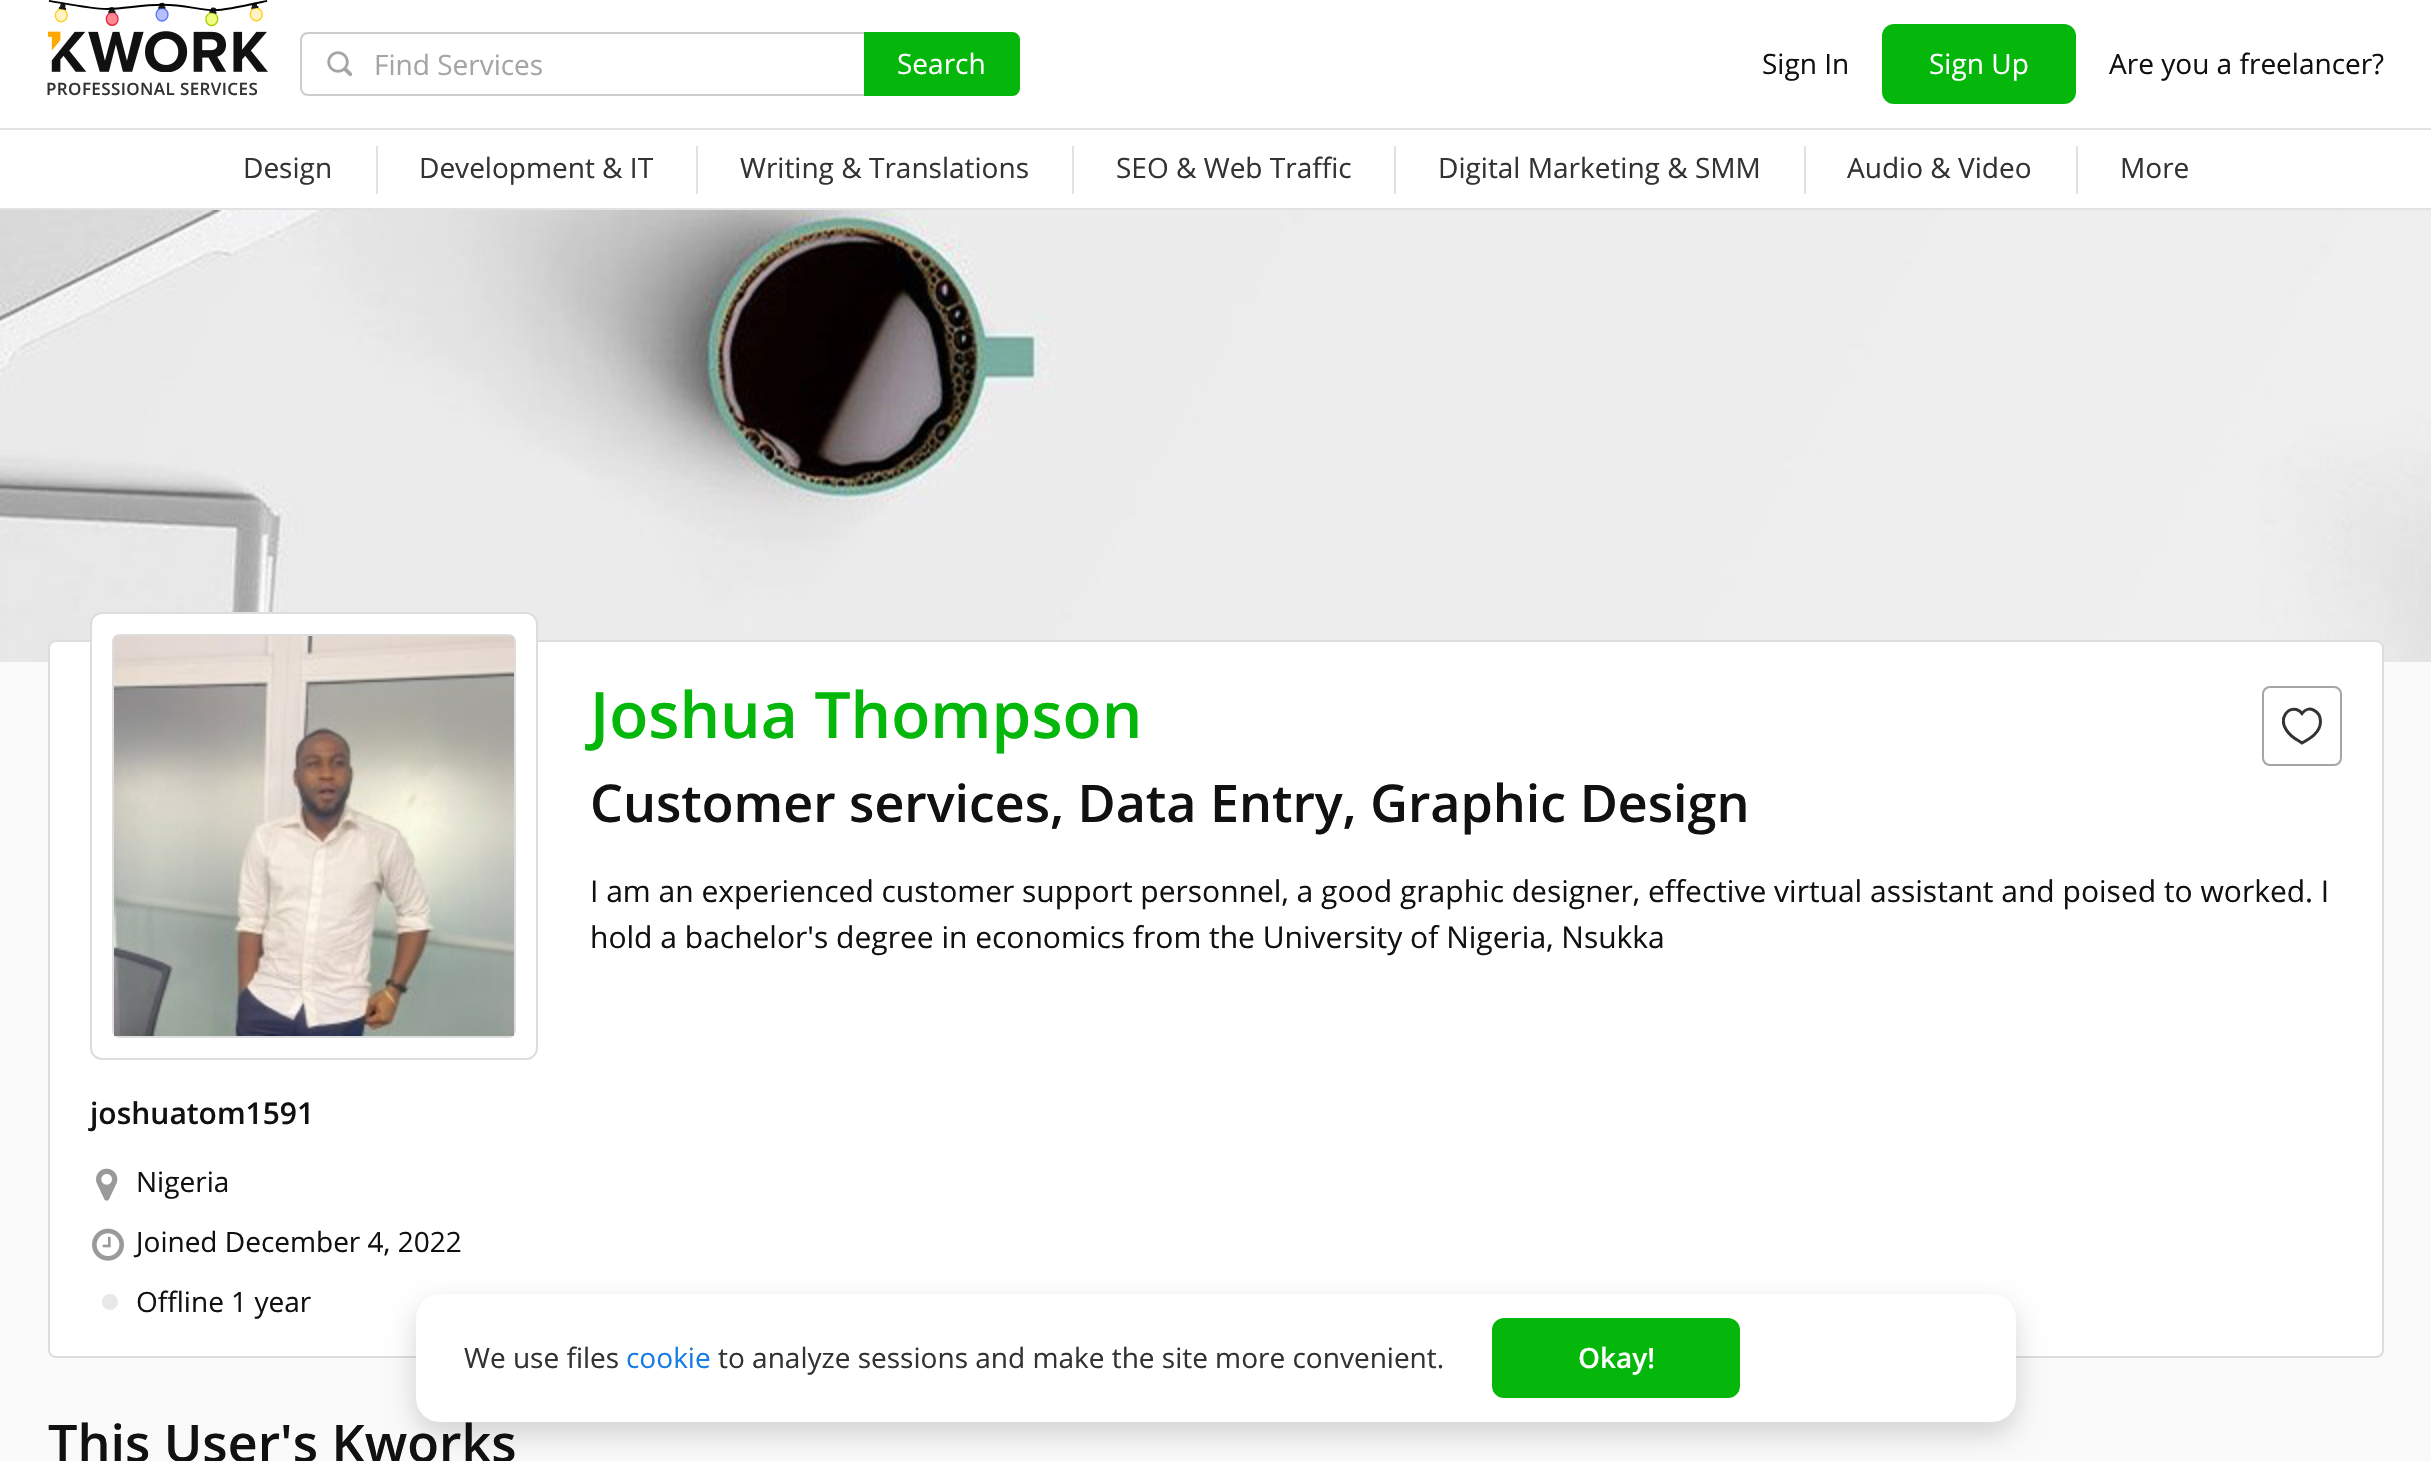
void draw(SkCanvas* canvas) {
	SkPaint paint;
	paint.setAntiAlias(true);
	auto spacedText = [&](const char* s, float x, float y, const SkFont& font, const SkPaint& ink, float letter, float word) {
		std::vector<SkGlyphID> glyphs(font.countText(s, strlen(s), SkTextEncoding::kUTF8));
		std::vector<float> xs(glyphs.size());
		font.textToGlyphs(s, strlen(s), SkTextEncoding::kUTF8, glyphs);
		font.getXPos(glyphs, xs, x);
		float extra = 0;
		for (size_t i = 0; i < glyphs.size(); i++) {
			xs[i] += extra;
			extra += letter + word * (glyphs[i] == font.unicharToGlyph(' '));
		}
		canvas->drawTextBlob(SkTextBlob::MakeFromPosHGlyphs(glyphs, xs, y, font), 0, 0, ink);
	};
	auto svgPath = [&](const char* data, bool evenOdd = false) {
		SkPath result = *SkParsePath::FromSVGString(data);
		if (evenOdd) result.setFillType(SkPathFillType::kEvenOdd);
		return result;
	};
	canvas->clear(0xffffffff);
	paint.setColor(0xffe2e2e2);
	canvas->drawRect(SkRect::MakeXYWH(0, 208, 2431, 2), paint);
	paint.setStroke(true);
	paint.setStrokeWidth(2);
	paint.setColor(0xffcccccc);
	canvas->drawRoundRect(SkRect::MakeXYWH(301, 33, 718, 62), 7, 7, paint);
	canvas->drawImageRect(SkImages::DeferredFromEncodedData(SkData::MakeFromFileName("img1.png")), SkRect::MakeXYWH(327, 51, 26, 26), SkSamplingOptions());
	SkFont f1(fontMgr->matchFamilyStyle("Open Sans", SkFontStyle::Normal()), 28);
	f1.setSubpixel(true);
	paint.setStroke(false);
	paint.setColor(0xffa5a5a5);
	canvas->drawString("Find Services", 374, 75, f1, paint);
	paint.setColor(0xff04b70a);
	canvas->drawPath(svgPath("M865 33H1012C1016 33 1019 36 1019 40V88C1019 92 1016 95 1012 95H865Z"), paint);
	paint.setStroke(true);
	canvas->drawPath(svgPath("M865 33H1012C1016 33 1019 36 1019 40V88C1019 92 1016 95 1012 95H865Z"), paint);
	paint.setStroke(false);
	paint.setColor(0xffffffff);
	canvas->drawString("Search", 897, 74, f1, paint);
	paint.setColor(0xff111111);
	canvas->drawString("Sign In", 1762, 74, f1, paint);
	paint.setColor(0xff04b70a);
	canvas->drawRoundRect(SkRect::MakeXYWH(1883, 25, 192, 78), 11, 11, paint);
	paint.setStroke(true);
	canvas->drawRoundRect(SkRect::MakeXYWH(1883, 25, 192, 78), 11, 11, paint);
	paint.setStroke(false);
	paint.setColor(0xffffffff);
	canvas->drawString("Sign Up", 1929, 74, f1, paint);
	paint.setColor(0xff111111);
	canvas->drawString("Are you a freelancer?", 2109, 74, f1, paint);
	canvas->drawImageRect(SkImages::DeferredFromEncodedData(SkData::MakeFromFileName("img2.png")), SkRect::MakeXYWH(48, 0, 220, 27), SkSamplingOptions());
	canvas->drawImageRect(SkImages::DeferredFromEncodedData(SkData::MakeFromFileName("img3.png")), SkRect::MakeXYWH(48, 31, 220, 41), SkSamplingOptions());
	SkFont f2(fontMgr->matchFamilyStyle("Open Sans", SkFontStyle(600, SkFontStyle::kNormal_Width, SkFontStyle::kUpright_Slant)), 17);
	f2.setSubpixel(true);
	paint.setColor(0xff333333);
	spacedText("PROFESSIONAL SERVICES", 46, 95, f2, paint, 0.4, 0);
	paint.setColor(0xffe2e2e2);
	canvas->drawRect(SkRect::MakeXYWH(0, 128, 2431, 2), paint);
	paint.setColor(0xff333333);
	canvas->drawString("Design", 243, 178, f1, paint);
	paint.setColor(0xffe2e2e2);
	canvas->drawRect(SkRect::MakeXYWH(376, 146, 2, 48), paint);
	paint.setColor(0xff333333);
	canvas->drawString("Development & IT", 419, 178, f1, paint);
	paint.setColor(0xffe2e2e2);
	canvas->drawRect(SkRect::MakeXYWH(696, 146, 2, 48), paint);
	paint.setColor(0xff333333);
	canvas->drawString("Writing & Translations", 740, 178, f1, paint);
	paint.setColor(0xffe2e2e2);
	canvas->drawRect(SkRect::MakeXYWH(1072, 146, 2, 48), paint);
	paint.setColor(0xff333333);
	canvas->drawString("SEO & Web Traffic", 1116, 178, f1, paint);
	paint.setColor(0xffe2e2e2);
	canvas->drawRect(SkRect::MakeXYWH(1394, 146, 2, 48), paint);
	paint.setColor(0xff333333);
	canvas->drawString("Digital Marketing & SMM", 1438, 178, f1, paint);
	paint.setColor(0xffe2e2e2);
	canvas->drawRect(SkRect::MakeXYWH(1804, 146, 2, 48), paint);
	paint.setColor(0xff333333);
	canvas->drawString("Audio & Video", 1847, 178, f1, paint);
	paint.setColor(0xffe2e2e2);
	canvas->drawRect(SkRect::MakeXYWH(2076, 146, 2, 48), paint);
	paint.setColor(0xff333333);
	canvas->drawString("More", 2120, 178, f1, paint);
	canvas->drawImageRect(SkImages::DeferredFromEncodedData(SkData::MakeFromFileName("img4.png")), SkRect::MakeXYWH(0, 210, 2431, 452), SkSamplingOptions());
	paint.setColor(0xfffafafa);
	canvas->drawRect(SkRect::MakeXYWH(0, 662, 2431, 799), paint);
	paint.setColor(0xffffffff);
	canvas->drawRoundRect(SkRect::MakeXYWH(49, 641, 2334, 716), 7, 7, paint);
	paint.setStroke(true);
	paint.setColor(0xffdddddd);
	canvas->drawRoundRect(SkRect::MakeXYWH(49, 641, 2334, 716), 7, 7, paint);
	paint.setColor(0xffa5a5a5);
	canvas->drawRoundRect(SkRect::MakeXYWH(2263, 687, 78, 78), 7, 7, paint);
	canvas->save();
	canvas->clipRect(SkRect::MakeXYWH(2282, 706, 40, 40));
	paint.setStrokeWidth(3);
	paint.setColor(0xff333333);
	canvas->drawPath(svgPath("M2320.5 721.5C2320.5 711.5 2308.5 704 2302 713.5C2297.5 707.5 2289.5 708 2285.5 714C2278.5 725 2290 736.5 2299 741L2302 743C2306.5 740.5 2311 738 2314.5 734.5C2318 731 2320.5 726.5 2320.5 721.5Z"), paint);
	canvas->restore();
	SkFont f3(fontMgr->matchFamilyStyle("Open Sans", SkFontStyle(600, SkFontStyle::kNormal_Width, SkFontStyle::kUpright_Slant)), 64);
	f3.setSubpixel(true);
	paint.setStroke(false);
	paint.setColor(0xff04b70a);
	canvas->drawString("Joshua Thompson", 590, 738, f3, paint);
	SkFont f4(fontMgr->matchFamilyStyle("Open Sans", SkFontStyle(600, SkFontStyle::kNormal_Width, SkFontStyle::kUpright_Slant)), 52);
	f4.setSubpixel(true);
	paint.setColor(0xff111111);
	canvas->drawString("Customer services, Data Entry, Graphic Design", 590, 822, f4, paint);
	SkFont f5(fontMgr->matchFamilyStyle("Open Sans", SkFontStyle::Normal()), 30);
	f5.setSubpixel(true);
	canvas->drawString("I am an experienced customer support personnel, a good graphic designer, effective virtual assistant and poised to worked. I", 590, 902, f5, paint);
	canvas->drawString("hold a bachelor's degree in economics from the University of Nigeria, Nsukka", 590, 948, f5, paint);
	paint.setColor(0xffffffff);
	canvas->drawRoundRect(SkRect::MakeXYWH(91, 613, 446, 446), 11, 11, paint);
	paint.setStroke(true);
	paint.setStrokeWidth(2);
	paint.setColor(0xffdddddd);
	canvas->drawRoundRect(SkRect::MakeXYWH(91, 613, 446, 446), 11, 11, paint);
	canvas->drawRoundRect(SkRect::MakeXYWH(113, 635, 402, 402), 7, 7, paint);
	canvas->drawImageRect(SkImages::DeferredFromEncodedData(SkData::MakeFromFileName("img5.png")), SkRect::MakeXYWH(114, 636, 400, 400), SkSamplingOptions());
	SkFont f6(fontMgr->matchFamilyStyle("Open Sans", SkFontStyle(600, SkFontStyle::kNormal_Width, SkFontStyle::kUpright_Slant)), 30);
	f6.setSubpixel(true);
	paint.setStroke(false);
	paint.setColor(0xff111111);
	canvas->drawString("joshuatom1591", 90, 1124, f6, paint);
	canvas->drawImageRect(SkImages::DeferredFromEncodedData(SkData::MakeFromFileName("img6.png")), SkRect::MakeXYWH(96, 1168, 22, 33), SkSamplingOptions());
	canvas->drawString("Nigeria", 136, 1192, f1, paint);
	canvas->drawImageRect(SkImages::DeferredFromEncodedData(SkData::MakeFromFileName("img7.png")), SkRect::MakeXYWH(92, 1228, 32, 33), SkSamplingOptions());
	canvas->drawString("Joined December 4, 2022", 136, 1252, f1, paint);
	paint.setColor(0xffe8e8e8);
	canvas->drawCircle(110, 1302, 8, paint);
	paint.setColor(0xff111111);
	canvas->drawString("Offline 1 year", 136, 1312, f1, paint);
	canvas->drawString("This User's Kworks", 48, 1462, f4, paint);
	paint.setColor(0x29000000);
	paint.setMaskFilter(SkMaskFilter::MakeBlur(kNormal_SkBlurStyle, 14));
	canvas->drawRoundRect(SkRect::MakeXYWH(416, 1306, 1600, 128), 24, 24, paint);
	paint.setMaskFilter(nullptr);
	paint.setColor(0xffffffff);
	canvas->drawRoundRect(SkRect::MakeXYWH(416, 1294, 1600, 128), 24, 24, paint);
	paint.setColor(0xff333333);
	canvas->drawString("We use files", 464, 1368, f1, paint);
	paint.setColor(0xff177de5);
	canvas->drawString("cookie", 626, 1368, f1, paint);
	paint.setColor(0xff333333);
	canvas->drawString("to analyze sessions and make the site more convenient.", 718, 1368, f1, paint);
	paint.setColor(0xff04b70a);
	canvas->drawRoundRect(SkRect::MakeXYWH(1493, 1319, 246, 78), 11, 11, paint);
	paint.setStroke(true);
	canvas->drawRoundRect(SkRect::MakeXYWH(1493, 1319, 246, 78), 11, 11, paint);
	SkFont f7(fontMgr->matchFamilyStyle("Open Sans", SkFontStyle(600, SkFontStyle::kNormal_Width, SkFontStyle::kUpright_Slant)), 28);
	f7.setSubpixel(true);
	paint.setStroke(false);
	paint.setColor(0xffffffff);
	canvas->drawString("Okay!", 1578, 1368, f7, paint);
}
